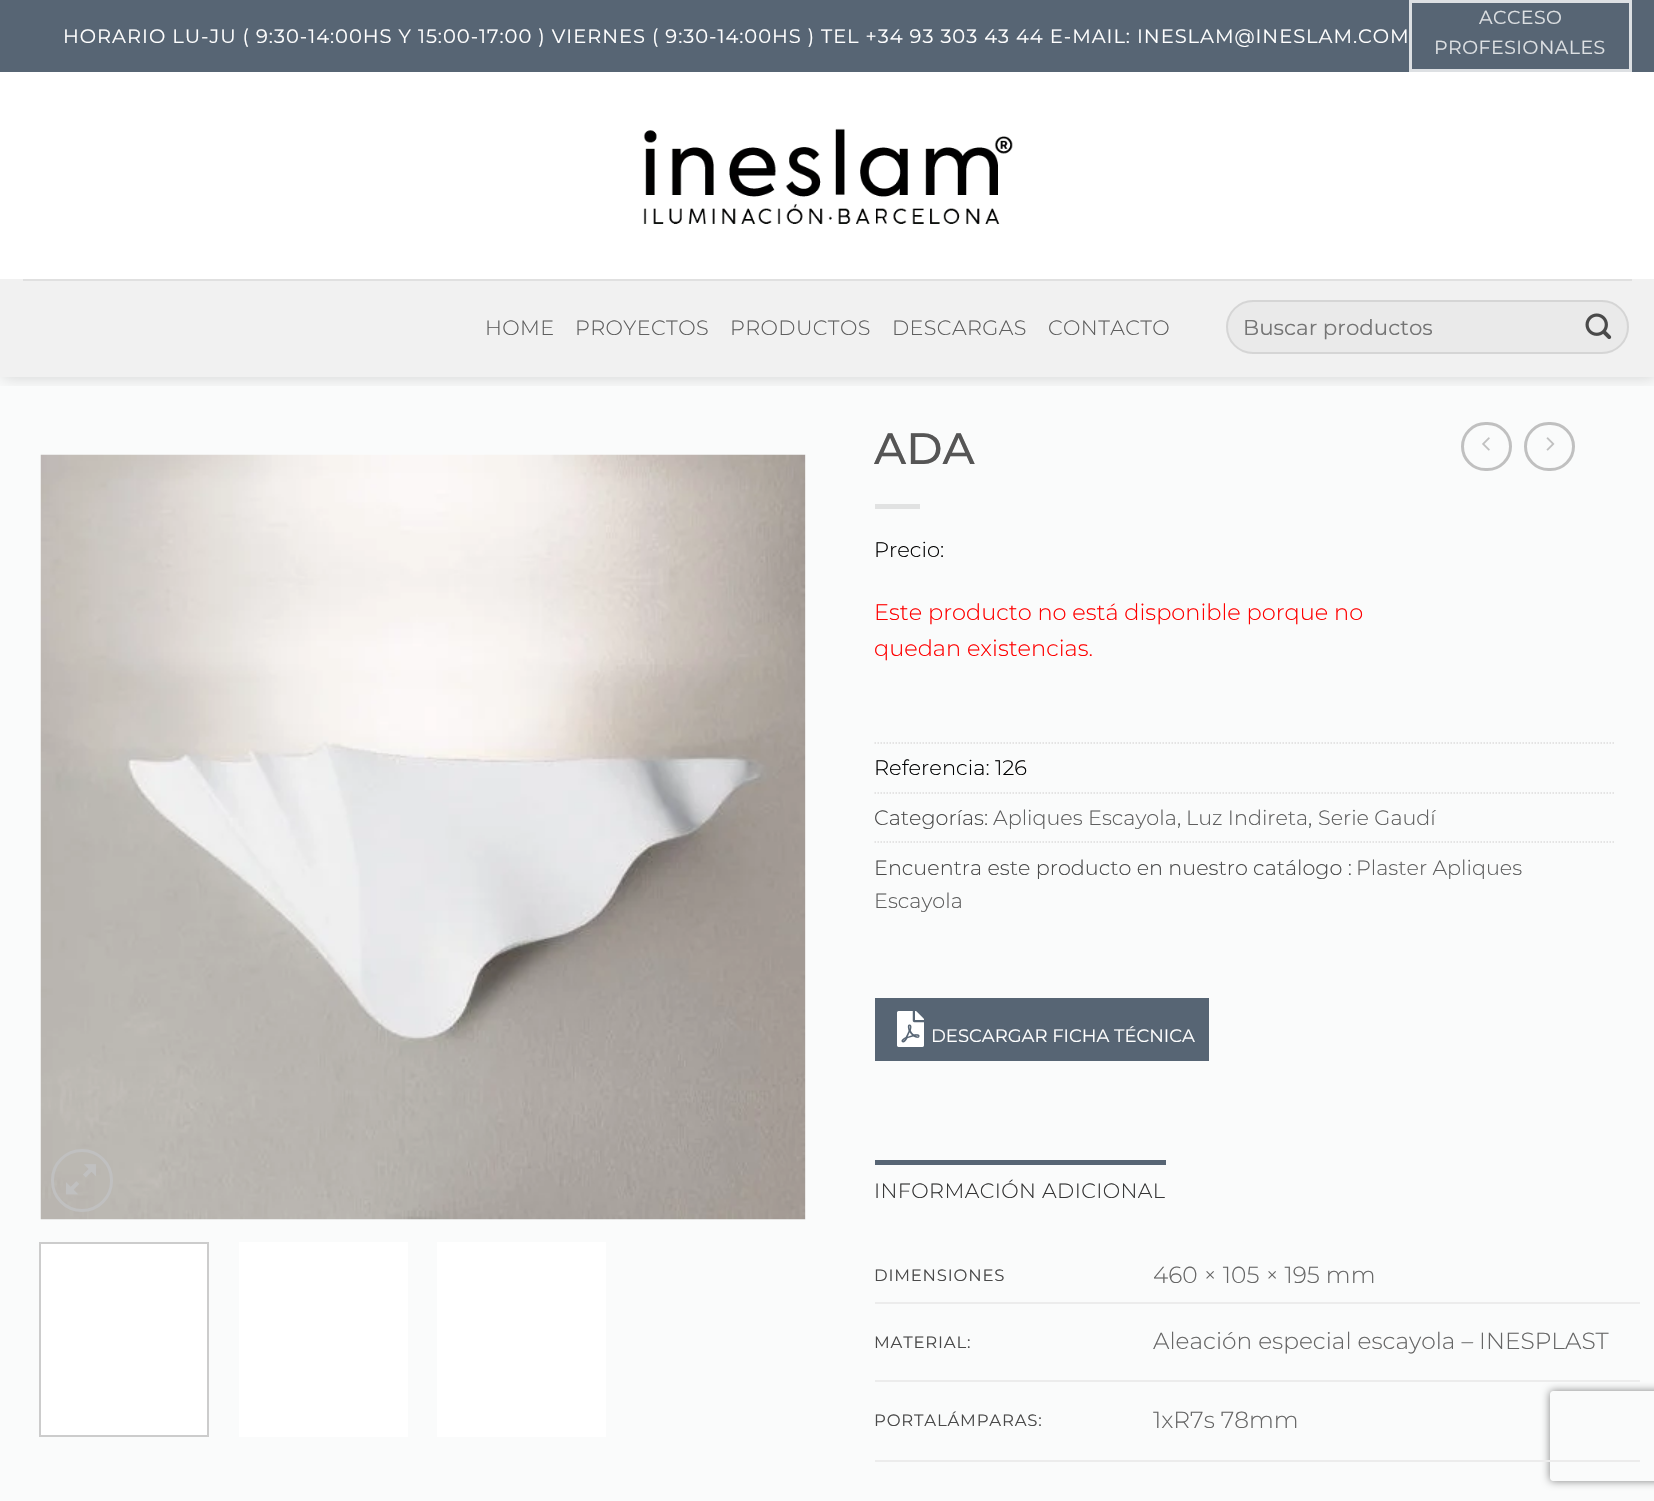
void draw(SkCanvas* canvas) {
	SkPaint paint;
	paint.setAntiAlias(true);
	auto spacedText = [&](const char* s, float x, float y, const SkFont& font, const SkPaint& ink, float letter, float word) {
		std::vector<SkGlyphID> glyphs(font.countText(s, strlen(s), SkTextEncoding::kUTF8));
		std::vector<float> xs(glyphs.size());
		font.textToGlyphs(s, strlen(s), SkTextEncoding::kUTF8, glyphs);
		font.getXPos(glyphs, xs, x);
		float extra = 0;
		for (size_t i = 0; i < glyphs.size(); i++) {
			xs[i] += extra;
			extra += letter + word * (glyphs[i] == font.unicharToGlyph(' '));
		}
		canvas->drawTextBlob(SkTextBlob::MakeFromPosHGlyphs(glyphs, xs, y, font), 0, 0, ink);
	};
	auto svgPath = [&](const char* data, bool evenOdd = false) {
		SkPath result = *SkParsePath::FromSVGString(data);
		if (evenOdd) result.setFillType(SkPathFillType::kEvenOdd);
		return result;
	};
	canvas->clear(0xffffffff);
	paint.setColor(0xfffafbfb);
	canvas->drawRect(SkRect::MakeXYWH(0, 377, 1654, 1124), paint);
	canvas->save();
	canvas->clipRect(SkRect::MakeXYWH(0, 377, 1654, 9));
	paint.setColor(0x26000000);
	paint.setMaskFilter(SkMaskFilter::MakeBlur(kNormal_SkBlurStyle, 7.5));
	canvas->drawRect(SkRect::MakeXYWH(2, 2, 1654, 376), paint);
	paint.setMaskFilter(nullptr);
	canvas->restore();
	paint.setColor(0xff576574);
	canvas->drawRect(SkRect::MakeXYWH(0, 0, 1654, 72), paint);
	SkFont f1(fontMgr->matchFamilyStyle("Montserrat", SkFontStyle::Normal()), 19.45);
	f1.setSubpixel(true);
	paint.setColor(0xffffffff);
	spacedText("HORARIO LU-JU ( 9:30-14:00HS Y 15:00-17:00 ) VIERNES ( 9:30-14:00HS )", 63, 43, f1, paint, 0.97, 0);
	spacedText("TEL +34 93 303 43 44 E-MAIL: INESLAM@INESLAM.COM", 821, 43, f1, paint, 0.97, 0);
	paint.setStroke(true);
	paint.setStrokeWidth(3);
	paint.setColor(0xffdde0e3);
	canvas->drawRect(SkRect::MakeXYWH(1410.5, 1.5, 220, 69), paint);
	SkFont f2(fontMgr->matchFamilyStyle("Montserrat", SkFontStyle::Normal()), 18.9);
	f2.setSubpixel(true);
	paint.setStroke(false);
	spacedText("ACCESO", 1479, 24, f2, paint, 0.5, 0);
	spacedText("PROFESIONALES", 1434, 54, f2, paint, 0.5, 0);
	canvas->drawImageRect(SkImages::DeferredFromEncodedData(SkData::MakeFromFileName("img1.png")), SkRect::MakeXYWH(643, 128, 370, 96), SkSamplingOptions());
	paint.setColor(0xfff1f1f1);
	canvas->drawRect(SkRect::MakeXYWH(0, 279, 1654, 98), paint);
	paint.setColor(0xffe0e0e0);
	canvas->drawRect(SkRect::MakeXYWH(23, 279, 1609, 2), paint);
	SkFont f3(fontMgr->matchFamilyStyle("Montserrat", SkFontStyle(300, SkFontStyle::kNormal_Width, SkFontStyle::kUpright_Slant)), 20.75);
	f3.setSubpixel(true);
	paint.setColor(0xff5f5f5f);
	spacedText("HOME", 485, 335, f3, paint, 0.4, 0);
	spacedText("PROYECTOS", 575, 335, f3, paint, 0.4, 0);
	spacedText("PRODUCTOS", 730, 335, f3, paint, 0.4, 0);
	spacedText("DESCARGAS", 892, 335, f3, paint, 0.4, 0);
	spacedText("CONTACTO", 1048, 335, f3, paint, 0.4, 0);
	paint.setColor(0xffeaeaea);
	canvas->drawRoundRect(SkRect::MakeXYWH(1226, 300, 403, 54), 27, 27, paint);
	paint.setStroke(true);
	paint.setStrokeWidth(2);
	paint.setColor(0x17000000);
	canvas->drawRoundRect(SkRect::MakeXYWH(1227, 301, 401, 52), 26, 26, paint);
	SkFont f4(fontMgr->matchFamilyStyle("Montserrat", SkFontStyle::Normal()), 21.4);
	f4.setSubpixel(true);
	paint.setStroke(false);
	paint.setColor(0xff757575);
	canvas->drawString("Buscar productos", 1243, 335, f4, paint);
	canvas->drawImageRect(SkImages::DeferredFromEncodedData(SkData::MakeFromFileName("img2.png")), SkRect::MakeXYWH(1585, 313, 27, 27), SkSamplingOptions());
	canvas->drawImageRect(SkImages::DeferredFromEncodedData(SkData::MakeFromFileName("img3.png")), SkRect::MakeXYWH(40, 454, 766, 766), SkSamplingOptions());
	paint.setColor(0x40ffffff);
	canvas->drawRect(SkRect::MakeXYWH(805, 455, 1, 764), paint);
	paint.setStroke(true);
	paint.setStrokeWidth(3);
	paint.setColor(0xffc0c0c0);
	canvas->drawRoundRect(SkRect::MakeXYWH(52.5, 1150.5, 59, 60), 29.5, 29.5, paint);
	canvas->drawImageRect(SkImages::DeferredFromEncodedData(SkData::MakeFromFileName("img4.png")), SkRect::MakeXYWH(66, 1164, 30, 31), SkSamplingOptions());
	paint.setStroke(false);
	paint.setColor(0xffffffff);
	canvas->drawRect(SkRect::MakeXYWH(40, 1243, 168, 193), paint);
	paint.setStroke(true);
	paint.setStrokeWidth(2);
	paint.setColor(0xffcccccc);
	canvas->drawRect(SkRect::MakeXYWH(40, 1243, 168, 193), paint);
	paint.setStroke(false);
	paint.setColor(0xffffffff);
	canvas->drawRect(SkRect::MakeXYWH(239, 1242, 169, 195), paint);
	canvas->drawRect(SkRect::MakeXYWH(437, 1242, 169, 195), paint);
	SkFont f5(fontMgr->matchFamilyStyle("Montserrat", SkFontStyle(500, SkFontStyle::kNormal_Width, SkFontStyle::kUpright_Slant)), 44);
	f5.setSubpixel(true);
	paint.setColor(0xff555555);
	canvas->drawString("ADA", 874, 464, f5, paint);
	paint.setColor(0xffe1e2e2);
	canvas->drawRect(SkRect::MakeXYWH(875, 504, 45, 5), paint);
	SkFont f6(fontMgr->matchFamilyStyle("Montserrat", SkFontStyle(300, SkFontStyle::kNormal_Width, SkFontStyle::kUpright_Slant)), 21);
	f6.setSubpixel(true);
	paint.setColor(0xff000000);
	canvas->drawString("Precio:", 874, 557, f6, paint);
	SkFont f7(fontMgr->matchFamilyStyle("Montserrat", SkFontStyle(300, SkFontStyle::kNormal_Width, SkFontStyle::kUpright_Slant)), 22.5);
	f7.setSubpixel(true);
	paint.setColor(0xffff0000);
	canvas->drawString("Este producto no está disponible porque no", 874, 620, f7, paint);
	canvas->drawString("quedan existencias.", 874, 656, f7, paint);
	paint.setStroke(true);
	paint.setStrokeWidth(3);
	paint.setColor(0xffc0c0c0);
	canvas->drawRoundRect(SkRect::MakeXYWH(1462.5, 423.5, 48, 46), 23, 23, paint);
	canvas->drawImageRect(SkImages::DeferredFromEncodedData(SkData::MakeFromFileName("img5.png")), SkRect::MakeXYWH(1482, 437, 8, 14), SkSamplingOptions());
	canvas->drawRoundRect(SkRect::MakeXYWH(1525.5, 423.5, 48, 46), 23, 23, paint);
	canvas->drawImageRect(SkImages::DeferredFromEncodedData(SkData::MakeFromFileName("img6.png")), SkRect::MakeXYWH(1546, 437, 9, 14), SkSamplingOptions());
	paint.setStrokeWidth(1.5);
	paint.setColor(0xffdddddd);
	paint.setPathEffect(SkDashPathEffect::Make({{1.5f, 1.5f}}, 0));
	canvas->drawPath(svgPath("M874.5 743H1615.5"), paint);
	paint.setPathEffect(nullptr);
	paint.setStroke(false);
	paint.setColor(0xff000000);
	canvas->drawString("Referencia: 126", 874, 775, f6, paint);
	paint.setStroke(true);
	paint.setColor(0xffdddddd);
	paint.setPathEffect(SkDashPathEffect::Make({{1.5f, 1.5f}}, 0));
	canvas->drawPath(svgPath("M874.5 793H1615.5"), paint);
	paint.setPathEffect(nullptr);
	paint.setStroke(false);
	paint.setColor(0xff4a4a4a);
	canvas->drawString("Categorías:", 874, 825, f3, paint);
	paint.setColor(0xff5f5f5f);
	canvas->drawString("Apliques Escayola", 993, 825, f3, paint);
	paint.setColor(0xff4a4a4a);
	canvas->drawString(",", 1177, 825, f3, paint);
	paint.setColor(0xff5f5f5f);
	canvas->drawString("Luz Indireta", 1186, 825, f3, paint);
	paint.setColor(0xff4a4a4a);
	canvas->drawString(",", 1308, 825, f3, paint);
	paint.setColor(0xff5f5f5f);
	canvas->drawString("Serie Gaudí", 1318, 825, f3, paint);
	paint.setStroke(true);
	paint.setColor(0xffdddddd);
	paint.setPathEffect(SkDashPathEffect::Make({{1.5f, 1.5f}}, 0));
	canvas->drawPath(svgPath("M874.5 842H1615.5"), paint);
	paint.setPathEffect(nullptr);
	paint.setStroke(false);
	paint.setColor(0xff4a4a4a);
	canvas->drawString("Encuentra este producto en nuestro catálogo :", 874, 875, f3, paint);
	paint.setColor(0xff5f5f5f);
	canvas->drawString("Plaster Apliques", 1356, 875, f3, paint);
	canvas->drawString("Escayola", 874, 908, f3, paint);
	paint.setColor(0xff576574);
	canvas->drawRect(SkRect::MakeXYWH(875, 998, 334, 63), paint);
	canvas->drawImageRect(SkImages::DeferredFromEncodedData(SkData::MakeFromFileName("img7.png")), SkRect::MakeXYWH(897, 1011, 27, 36), SkSamplingOptions());
	SkFont f8(fontMgr->matchFamilyStyle("Montserrat", SkFontStyle::Normal()), 18);
	f8.setSubpixel(true);
	paint.setColor(0xffffffff);
	canvas->drawString("DESCARGAR FICHA TÉCNICA", 931, 1042, f8, paint);
	paint.setColor(0xff576574);
	canvas->drawRect(SkRect::MakeXYWH(875, 1160, 291, 5), paint);
	paint.setColor(0xff353535);
	spacedText("INFORMACIÓN ADICIONAL", 874, 1198, f3, paint, 0.4, 0);
	paint.setColor(0xffececec);
	canvas->drawRect(SkRect::MakeXYWH(875, 1302, 765, 2), paint);
	SkFont f9(fontMgr->matchFamilyStyle("Montserrat", SkFontStyle::Normal()), 16.5);
	f9.setSubpixel(true);
	paint.setColor(0xff4a4a4a);
	spacedText("DIMENSIONES", 874, 1281, f9, paint, 0.8, 0);
	SkFont f10(fontMgr->matchFamilyStyle("Montserrat", SkFontStyle(300, SkFontStyle::kNormal_Width, SkFontStyle::kUpright_Slant)), 23.3);
	f10.setSubpixel(true);
	paint.setColor(0xff666666);
	canvas->drawString("460 × 105 × 195 mm", 1153, 1283, f10, paint);
	canvas->save();
	canvas->clipPath(svgPath("M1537 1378H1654V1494H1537ZM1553 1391H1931C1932.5 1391 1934 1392.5 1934 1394V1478C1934 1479.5 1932.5 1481 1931 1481H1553C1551.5 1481 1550 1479.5 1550 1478V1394C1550 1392.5 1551.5 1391 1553 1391Z", true), true);
	paint.setColor(0xff808080);
	paint.setMaskFilter(SkMaskFilter::MakeBlur(kNormal_SkBlurStyle, 4));
	canvas->drawRoundRect(SkRect::MakeXYWH(1550, 1391, 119, 90), 3, 3, paint);
	paint.setMaskFilter(nullptr);
	canvas->restore();
	paint.setColor(0xffececec);
	canvas->drawRect(SkRect::MakeXYWH(875, 1380, 765, 2), paint);
	paint.setColor(0xff4a4a4a);
	spacedText("MATERIAL:", 874, 1348, f9, paint, 0.8, 0);
	paint.setColor(0xff666666);
	canvas->drawString("Aleación especial escayola – INESPLAST", 1153, 1349, f10, paint);
	paint.setColor(0xffececec);
	canvas->drawRect(SkRect::MakeXYWH(875, 1460, 765, 2), paint);
	paint.setColor(0xff4a4a4a);
	spacedText("PORTALÁMPARAS:", 874, 1426, f9, paint, 0.8, 0);
	paint.setColor(0xff666666);
	canvas->drawString("1xR7s 78mm", 1153, 1428, f10, paint);
}
